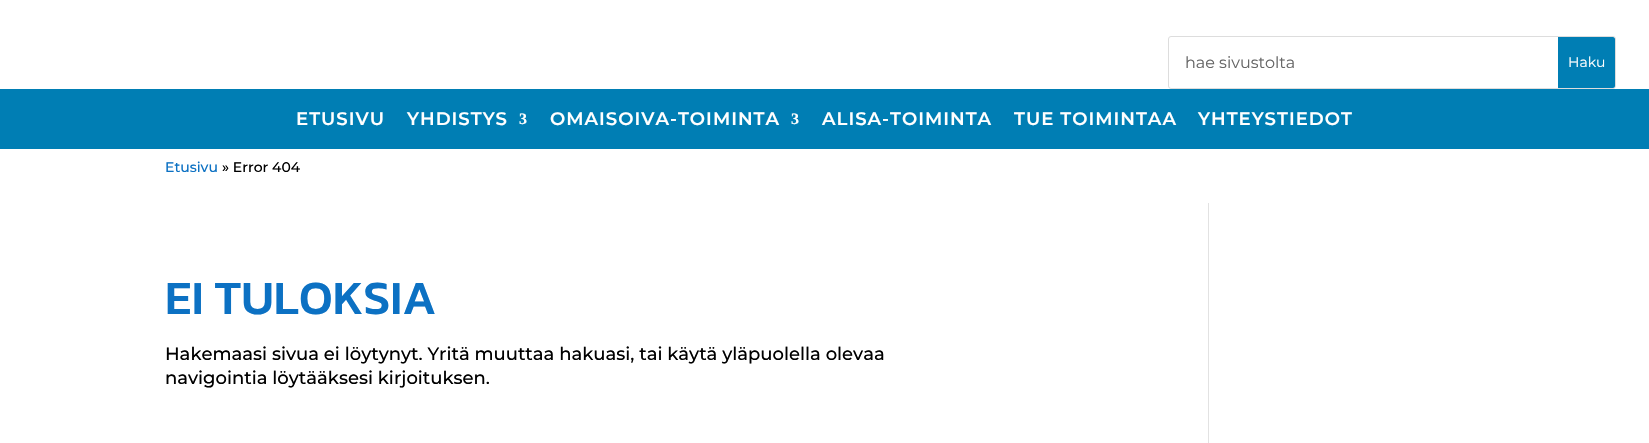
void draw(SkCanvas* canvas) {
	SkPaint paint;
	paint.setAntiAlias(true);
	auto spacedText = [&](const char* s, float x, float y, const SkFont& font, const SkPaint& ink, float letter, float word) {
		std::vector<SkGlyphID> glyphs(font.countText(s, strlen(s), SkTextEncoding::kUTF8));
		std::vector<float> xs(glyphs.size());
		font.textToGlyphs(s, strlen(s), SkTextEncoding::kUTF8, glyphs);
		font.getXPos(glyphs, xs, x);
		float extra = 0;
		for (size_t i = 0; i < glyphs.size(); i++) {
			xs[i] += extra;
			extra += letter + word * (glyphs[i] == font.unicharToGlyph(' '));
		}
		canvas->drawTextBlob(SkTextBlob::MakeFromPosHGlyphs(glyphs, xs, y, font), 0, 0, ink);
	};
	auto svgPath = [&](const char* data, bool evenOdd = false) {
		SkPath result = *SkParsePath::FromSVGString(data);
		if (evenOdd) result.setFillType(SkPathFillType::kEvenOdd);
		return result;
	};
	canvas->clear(0xffffffff);
	paint.setStroke(true);
	paint.setStrokeWidth(1);
	paint.setColor(0xffdddddd);
	canvas->drawRoundRect(SkRect::MakeXYWH(1168.5, 36.5, 447, 52), 2.5, 2.5, paint);
	SkFont f1(fontMgr->matchFamilyStyle("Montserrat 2", SkFontStyle(100, SkFontStyle::kNormal_Width, SkFontStyle::kUpright_Slant)), 16);
	f1.setSubpixel(true);
	paint.setStroke(false);
	paint.setColor(0xff666666);
	canvas->drawString("hae sivustolta", 1185, 68, f1, paint);
	paint.setColor(0xff007eb4);
	canvas->drawPath(svgPath("M1558 37H1613C1614 37 1615 38 1615 39V86C1615 87 1614 88 1613 88H1558Z"), paint);
	SkFont f2(fontMgr->matchFamilyStyle("Montserrat 2", SkFontStyle(100, SkFontStyle::kNormal_Width, SkFontStyle::kUpright_Slant)), 14);
	f2.setSubpixel(true);
	paint.setColor(0xffffffff);
	canvas->drawString("Haku", 1568, 67, f2, paint);
	paint.setColor(0xff007eb4);
	canvas->drawRect(SkRect::MakeXYWH(0, 89, 1649, 60), paint);
	SkFont f3(fontMgr->matchFamilyStyle("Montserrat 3", SkFontStyle(100, SkFontStyle::kNormal_Width, SkFontStyle::kUpright_Slant)), 18.1);
	f3.setSubpixel(true);
	paint.setColor(0xffffffff);
	spacedText("ETUSIVU", 296, 125, f3, paint, 1, 0);
	spacedText("YHDISTYS", 407, 125, f3, paint, 1, 0);
	SkFont f4(fontMgr->matchFamilyStyle("Liberation Serif", SkFontStyle::Bold()), 16);
	f4.setSubpixel(true);
	spacedText("3", 519, 124, f4, paint, 1, 0);
	spacedText("OMAISOIVA-TOIMINTA", 550, 125, f3, paint, 1, 0);
	spacedText("3", 791, 124, f4, paint, 1, 0);
	spacedText("ALISA-TOIMINTA", 822, 125, f3, paint, 1, 0);
	spacedText("TUE TOIMINTAA", 1014, 125, f3, paint, 1, 0);
	spacedText("YHTEYSTIEDOT", 1198, 125, f3, paint, 1, 0);
	SkFont f5(fontMgr->matchFamilyStyle("Montserrat", SkFontStyle(100, SkFontStyle::kNormal_Width, SkFontStyle::kUpright_Slant)), 14);
	f5.setSubpixel(true);
	paint.setColor(0xff0c71c3);
	canvas->drawString("Etusivu", 165, 172, f5, paint);
	paint.setColor(0xff000000);
	canvas->drawString("» Error 404", 222, 172, f5, paint);
	SkFont f6(fontMgr->matchFamilyStyle("Kanit", SkFontStyle(500, SkFontStyle::kNormal_Width, SkFontStyle::kUpright_Slant)), 48);
	f6.setSubpixel(true);
	paint.setColor(0xff0c71c3);
	canvas->drawString("EI TULOKSIA", 165, 314, f6, paint);
	SkFont f7(fontMgr->matchFamilyStyle("Montserrat", SkFontStyle(100, SkFontStyle::kNormal_Width, SkFontStyle::kUpright_Slant)), 18);
	f7.setSubpixel(true);
	paint.setColor(0xff000000);
	canvas->drawString("Hakemaasi sivua ei löytynyt. Yritä muuttaa hakuasi, tai käytä yläpuolella olevaa", 165, 360, f7, paint);
	canvas->drawString("navigointia löytääksesi kirjoituksen.", 165, 384, f7, paint);
	paint.setColor(0xffe2e2e2);
	canvas->drawRect(SkRect::MakeXYWH(1208, 203, 1, 240), paint);
}
